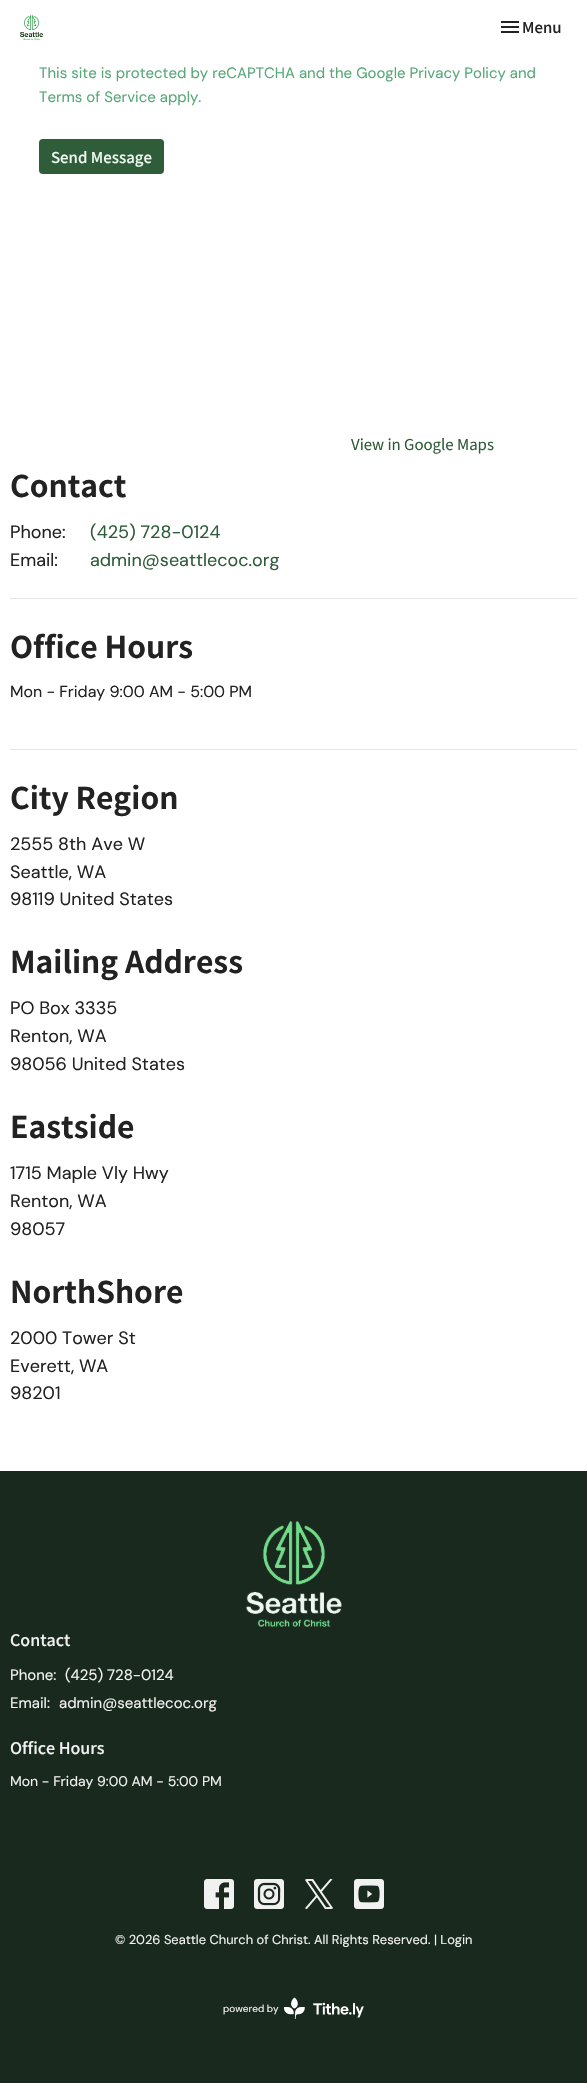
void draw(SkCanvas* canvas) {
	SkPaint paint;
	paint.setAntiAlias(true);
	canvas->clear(0xffffffff);
	canvas->drawImageRect(SkImages::DeferredFromEncodedData(SkData::MakeFromFileName("img1.png")), SkRect::MakeXYWH(20, 15, 23, 25), SkSamplingOptions());
	canvas->drawImageRect(SkImages::DeferredFromEncodedData(SkData::MakeFromFileName("img2.png")), SkRect::MakeXYWH(501, 21, 18, 12), SkSamplingOptions());
	SkFont f1(fontMgr->matchFamilyStyle("Noto Sans JP", SkFontStyle(500, SkFontStyle::kNormal_Width, SkFontStyle::kUpright_Slant)), 15);
	f1.setSubpixel(true);
	paint.setColor(0xff222222);
	canvas->drawString("Menu", 522, 33, f1, paint);
	SkFont f2(fontMgr->matchFamilyStyle("DM Sans", SkFontStyle::Normal()), 15);
	f2.setSubpixel(true);
	paint.setColor(0xff56a877);
	canvas->drawString("This site is protected by reCAPTCHA and the Google Privacy Policy and", 39, 78, f2, paint);
	canvas->drawString("Terms of Service apply.", 39, 102, f2, paint);
	paint.setColor(0xff2f5c39);
	canvas->drawRoundRect(SkRect::MakeXYWH(39, 139, 125, 35), 4, 4, paint);
	paint.setColor(0xffeef8f1);
	canvas->drawString("Send Message", 51, 163, f1, paint);
	SkFont f3(fontMgr->matchFamilyStyle("Noto Sans JP", SkFontStyle::Normal()), 15);
	f3.setSubpixel(true);
	paint.setColor(0xff2f5c39);
	canvas->drawString("View in Google Maps", 351, 450, f3, paint);
	SkFont f4(fontMgr->matchFamilyStyle("Noto Sans JP", SkFontStyle::Bold()), 30);
	f4.setSubpixel(true);
	paint.setColor(0xff222222);
	canvas->drawString("Contact", 10, 497, f4, paint);
	SkFont f5(fontMgr->matchFamilyStyle("DM Sans", SkFontStyle::Normal()), 18);
	f5.setSubpixel(true);
	canvas->drawString("Phone:", 10, 538, f5, paint);
	paint.setColor(0xff2f5c39);
	canvas->drawString("(425) 728-0124", 90, 538, f5, paint);
	paint.setColor(0xff222222);
	canvas->drawString("Email:", 10, 566, f5, paint);
	paint.setColor(0xff2f5c39);
	canvas->drawString("admin@seattlecoc.org", 90, 566, f5, paint);
	paint.setColor(0xffe6e6e6);
	canvas->drawRect(SkRect::MakeXYWH(10, 598, 567, 1), paint);
	paint.setColor(0xff222222);
	canvas->drawString("Office Hours", 10, 658, f4, paint);
	SkFont f6(fontMgr->matchFamilyStyle("DM Sans", SkFontStyle::Normal()), 16);
	f6.setSubpixel(true);
	canvas->drawString("Mon - Friday 9:00 AM - 5:00 PM", 10, 697, f6, paint);
	paint.setColor(0xffe6e6e6);
	canvas->drawRect(SkRect::MakeXYWH(10, 749, 567, 1), paint);
	paint.setColor(0xff222222);
	canvas->drawString("City Region", 10, 809, f4, paint);
	canvas->drawString("2555 8th Ave W", 10, 850, f5, paint);
	canvas->drawString("Seattle, WA", 10, 878, f5, paint);
	canvas->drawString("98119 United States", 10, 905, f5, paint);
	canvas->drawString("Mailing Address", 10, 973, f4, paint);
	canvas->drawString("PO Box 3335", 10, 1014, f5, paint);
	canvas->drawString("Renton, WA", 10, 1042, f5, paint);
	canvas->drawString("98056 United States", 10, 1070, f5, paint);
	canvas->drawString("Eastside", 10, 1138, f4, paint);
	canvas->drawString("1715 Maple Vly Hwy", 10, 1179, f5, paint);
	canvas->drawString("Renton, WA", 10, 1207, f5, paint);
	canvas->drawString("98057", 10, 1235, f5, paint);
	canvas->drawString("NorthShore", 10, 1303, f4, paint);
	canvas->drawString("2000 Tower St", 10, 1344, f5, paint);
	canvas->drawString("Everett, WA", 10, 1372, f5, paint);
	canvas->drawString("98201", 10, 1399, f5, paint);
	paint.setColor(0xff1a291e);
	canvas->drawRect(SkRect::MakeXYWH(0, 1471, 587, 612), paint);
	canvas->drawImageRect(SkImages::DeferredFromEncodedData(SkData::MakeFromFileName("img3.png")), SkRect::MakeXYWH(246, 1521, 96, 106), SkSamplingOptions());
	SkFont f7(fontMgr->matchFamilyStyle("Noto Sans JP", SkFontStyle(500, SkFontStyle::kNormal_Width, SkFontStyle::kUpright_Slant)), 16);
	f7.setSubpixel(true);
	paint.setColor(0xfff1f1f1);
	canvas->drawString("Contact", 10, 1646, f7, paint);
	canvas->drawString("Phone:", 10, 1680, f2, paint);
	canvas->drawString("(425) 728-0124", 65, 1680, f2, paint);
	canvas->drawString("Email:", 10, 1708, f2, paint);
	canvas->drawString("admin@seattlecoc.org", 59, 1708, f2, paint);
	canvas->drawString("Office Hours", 10, 1754, f7, paint);
	SkFont f8(fontMgr->matchFamilyStyle("DM Sans", SkFontStyle::Normal()), 14);
	f8.setSubpixel(true);
	canvas->drawString("Mon - Friday 9:00 AM - 5:00 PM", 10, 1786, f8, paint);
	canvas->drawImageRect(SkImages::DeferredFromEncodedData(SkData::MakeFromFileName("img4.png")), SkRect::MakeXYWH(204, 1879, 30, 30), SkSamplingOptions());
	canvas->drawImageRect(SkImages::DeferredFromEncodedData(SkData::MakeFromFileName("img5.png")), SkRect::MakeXYWH(254, 1879, 30, 30), SkSamplingOptions());
	canvas->drawImageRect(SkImages::DeferredFromEncodedData(SkData::MakeFromFileName("img6.png")), SkRect::MakeXYWH(305, 1879, 28, 30), SkSamplingOptions());
	canvas->drawImageRect(SkImages::DeferredFromEncodedData(SkData::MakeFromFileName("img7.png")), SkRect::MakeXYWH(354, 1879, 30, 30), SkSamplingOptions());
	SkFont f9(fontMgr->matchFamilyStyle("DM Sans", SkFontStyle::Normal()), 12.9);
	f9.setSubpixel(true);
	canvas->drawString("© 2026 Seattle Church of Christ. All Rights Reserved. | Login", 115, 1944, f9, paint);
	SkFont f10(fontMgr->matchFamilyStyle("DM Sans", SkFontStyle::Normal()), 10);
	f10.setSubpixel(true);
	canvas->drawString("powered by", 223, 2012, f10, paint);
	canvas->drawImageRect(SkImages::DeferredFromEncodedData(SkData::MakeFromFileName("img8.png")), SkRect::MakeXYWH(284, 1997, 80, 22), SkSamplingOptions());
}
